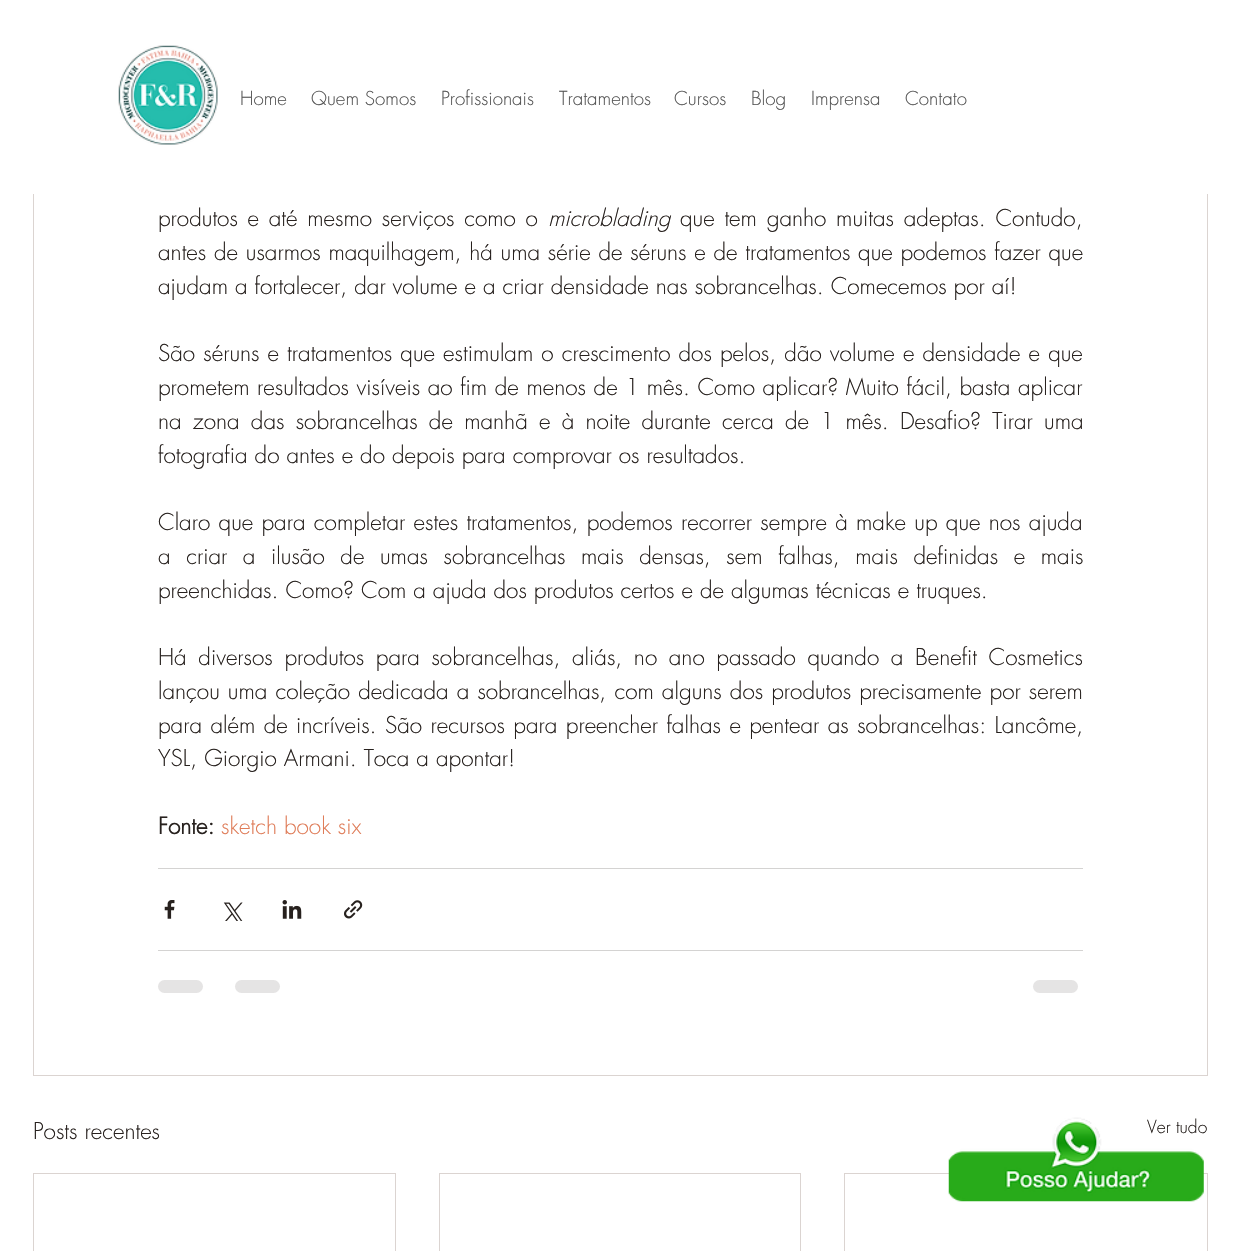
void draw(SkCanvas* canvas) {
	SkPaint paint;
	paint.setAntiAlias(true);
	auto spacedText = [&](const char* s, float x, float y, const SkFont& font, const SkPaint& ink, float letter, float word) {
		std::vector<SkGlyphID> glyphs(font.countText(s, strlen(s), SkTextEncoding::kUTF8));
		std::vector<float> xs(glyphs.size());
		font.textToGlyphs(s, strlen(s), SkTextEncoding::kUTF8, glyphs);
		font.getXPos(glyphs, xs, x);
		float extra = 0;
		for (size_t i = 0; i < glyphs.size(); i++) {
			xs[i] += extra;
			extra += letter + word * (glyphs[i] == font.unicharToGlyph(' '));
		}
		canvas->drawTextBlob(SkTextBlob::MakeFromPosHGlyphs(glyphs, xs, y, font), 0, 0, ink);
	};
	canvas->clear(0xffffffff);
	paint.setStroke(true);
	paint.setStrokeWidth(1);
	paint.setColor(0xffdbd4d1);
	canvas->drawRect(SkRect::MakeXYWH(33.5, -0.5, 1174, 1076), paint);
	paint.setStroke(false);
	paint.setColor(0xffffffff);
	canvas->drawRect(SkRect::MakeXYWH(33, 0, 1175, 194), paint);
	canvas->drawImageRect(SkImages::DeferredFromEncodedData(SkData::MakeFromFileName("img1.png")), SkRect::MakeXYWH(118, 45, 100, 100), SkSamplingOptions());
	SkFont f1(fontMgr->matchFamilyStyle("futura", SkFontStyle(300, SkFontStyle::kNormal_Width, SkFontStyle::kUpright_Slant)), 18.75);
	f1.setSubpixel(true);
	paint.setColor(0xff545454);
	canvas->drawString("Home", 240, 105, f1, paint);
	canvas->drawString("Quem Somos", 311, 105, f1, paint);
	canvas->drawString("Profissionais", 441, 105, f1, paint);
	canvas->drawString("Tratamentos", 559, 105, f1, paint);
	canvas->drawString("Cursos", 674, 105, f1, paint);
	canvas->drawString("Blog", 751, 105, f1, paint);
	canvas->drawString("Imprensa", 811, 105, f1, paint);
	canvas->drawString("Contato", 905, 105, f1, paint);
	SkFont f2(fontMgr->matchFamilyStyle("futura", SkFontStyle(300, SkFontStyle::kNormal_Width, SkFontStyle::kUpright_Slant)), 22.5);
	f2.setSubpixel(true);
	paint.setColor(0xff27211e);
	spacedText("produtos e até mesmo serviços como o", 158, 226, f2, paint, 0, 2.75);
	SkFont f3(fontMgr->matchFamilyStyle("futura", SkFontStyle(300, SkFontStyle::kNormal_Width, SkFontStyle::kItalic_Slant)), 22.5);
	f3.setSubpixel(true);
	canvas->drawString("microblading", 548, 226, f3, paint);
	spacedText("que tem ganho muitas adeptas. Contudo,", 680, 226, f2, paint, 0, 2.75);
	spacedText("antes de usarmos maquilhagem, há uma série de séruns e de tratamentos que podemos fazer que", 158, 260, f2, paint, 0, 0.75);
	canvas->drawString("ajudam a fortalecer, dar volume e a criar densidade nas sobrancelhas. Comecemos por aí!", 158, 294, f2, paint);
	spacedText("São séruns e tratamentos que estimulam o crescimento dos pelos, dão volume e densidade e que", 158, 361, f2, paint, 0, 1.1);
	spacedText("prometem resultados visíveis ao fim de menos de 1 mês. Como aplicar? Muito fácil, basta aplicar", 158, 395, f2, paint, 0, 0.6);
	spacedText("na zona das sobrancelhas de manhã e à noite durante cerca de 1 mês. Desafio? Tirar uma", 158, 429, f2, paint, 0, 4.25);
	canvas->drawString("fotografia do antes e do depois para comprovar os resultados.", 158, 463, f2, paint);
	spacedText("Claro que para completar estes tratamentos, podemos recorrer sempre à make up que nos ajuda", 158, 530, f2, paint, 0, 1.3);
	spacedText("a criar a ilusão de umas sobrancelhas mais densas, sem falhas, mais definidas e mais", 158, 564, f2, paint, 0, 8.6);
	canvas->drawString("preenchidas. Como? Com a ajuda dos produtos certos e de algumas técnicas e truques.", 158, 598, f2, paint);
	spacedText("Há diversos produtos para sobrancelhas, aliás, no ano passado quando a Benefit Cosmetics", 158, 665, f2, paint, 0, 4.6);
	spacedText("lançou uma coleção dedicada a sobrancelhas, com alguns dos produtos precisamente por serem", 158, 699, f2, paint, 0, 1.1);
	spacedText("para além de incríveis. São recursos para preencher falhas e pentear as sobrancelhas: Lancôme,", 158, 733, f2, paint, 0, 1.4);
	canvas->drawString("YSL, Giorgio Armani. Toca a apontar!", 158, 766, f2, paint);
	SkFont f4(fontMgr->matchFamilyStyle("futura", SkFontStyle::Bold()), 22.5);
	f4.setSubpixel(true);
	canvas->drawString("Fonte:", 158, 834, f4, paint);
	paint.setColor(0xffdf7c58);
	canvas->drawString("sketch book six", 221, 834, f2, paint);
	paint.setColor(0xffd4d3d2);
	canvas->drawRect(SkRect::MakeXYWH(158, 868, 925, 1), paint);
	canvas->drawImageRect(SkImages::DeferredFromEncodedData(SkData::MakeFromFileName("img2.png")), SkRect::MakeXYWH(164, 900, 11, 19), SkSamplingOptions());
	canvas->drawImageRect(SkImages::DeferredFromEncodedData(SkData::MakeFromFileName("img3.png")), SkRect::MakeXYWH(223, 902, 20, 19), SkSamplingOptions());
	canvas->drawImageRect(SkImages::DeferredFromEncodedData(SkData::MakeFromFileName("img4.png")), SkRect::MakeXYWH(282, 900, 20, 19), SkSamplingOptions());
	canvas->drawImageRect(SkImages::DeferredFromEncodedData(SkData::MakeFromFileName("img5.png")), SkRect::MakeXYWH(344, 900, 19, 19), SkSamplingOptions());
	canvas->drawRect(SkRect::MakeXYWH(158, 950, 925, 1), paint);
	paint.setColor(0xffe5e4e4);
	canvas->drawRoundRect(SkRect::MakeXYWH(158, 980, 45, 13), 6.5, 6.5, paint);
	canvas->drawRoundRect(SkRect::MakeXYWH(235, 980, 45, 13), 6.5, 6.5, paint);
	canvas->drawRoundRect(SkRect::MakeXYWH(1033, 980, 45, 13), 6.5, 6.5, paint);
	paint.setColor(0xff27211e);
	canvas->drawString("Posts recentes", 33, 1139, f2, paint);
	SkFont f5(fontMgr->matchFamilyStyle("futura", SkFontStyle(300, SkFontStyle::kNormal_Width, SkFontStyle::kUpright_Slant)), 17.5);
	f5.setSubpixel(true);
	canvas->drawString("Ver tudo", 1147, 1133, f5, paint);
	paint.setStroke(true);
	paint.setColor(0xffdbd4d1);
	canvas->drawRect(SkRect::MakeXYWH(33.5, 1173.5, 362, 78), paint);
	canvas->drawRect(SkRect::MakeXYWH(439.5, 1173.5, 361, 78), paint);
	canvas->drawRect(SkRect::MakeXYWH(844.5, 1173.5, 363, 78), paint);
	canvas->drawImageRect(SkImages::DeferredFromEncodedData(SkData::MakeFromFileName("img6.png")), SkRect::MakeXYWH(948, 1117, 256, 85), SkSamplingOptions());
}
